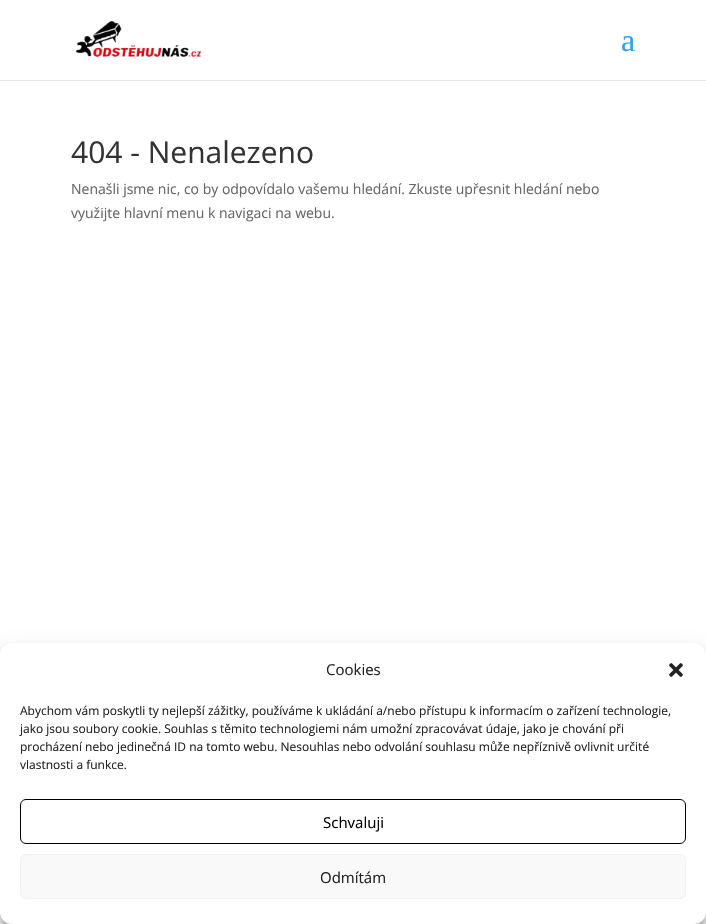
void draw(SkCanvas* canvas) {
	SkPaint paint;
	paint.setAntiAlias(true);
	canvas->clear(0xffffffff);
	paint.setColor(0xffe6e6e6);
	canvas->drawRect(SkRect::MakeXYWH(0, 80, 706, 1), paint);
	canvas->drawImageRect(SkImages::DeferredFromEncodedData(SkData::MakeFromFileName("img1.png")), SkRect::MakeXYWH(76, 21, 126, 36), SkSamplingOptions());
	SkFont f1(fontMgr->matchFamilyStyle("Liberation Serif", SkFontStyle::Normal()), 32);
	f1.setSubpixel(true);
	paint.setColor(0xff2ea3f2);
	canvas->drawString("a", 621, 51, f1, paint);
	SkFont f2(fontMgr->matchFamilyStyle("Open Sans", SkFontStyle::Normal()), 30);
	f2.setSubpixel(true);
	paint.setColor(0xff333333);
	canvas->drawString("404 - Nenalezeno", 71, 163, f2, paint);
	SkFont f3(fontMgr->matchFamilyStyle("Open Sans", SkFontStyle::Normal()), 14);
	f3.setSubpixel(true);
	paint.setColor(0xff666666);
	canvas->drawString("Nenašli jsme nic, co by odpovídalo vašemu hledání. Zkuste upřesnit hledání nebo", 71, 194, f3, paint);
	canvas->drawString("využijte hlavní menu k navigaci na webu.", 71, 218, f3, paint);
	paint.setColor(0x3b000000);
	paint.setMaskFilter(SkMaskFilter::MakeBlur(kNormal_SkBlurStyle, 3));
	canvas->drawRoundRect(SkRect::MakeXYWH(0, 649, 706, 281), 12, 12, paint);
	paint.setMaskFilter(nullptr);
	paint.setColor(0x30000000);
	paint.setMaskFilter(SkMaskFilter::MakeBlur(kNormal_SkBlurStyle, 10));
	canvas->drawRoundRect(SkRect::MakeXYWH(0, 653, 706, 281), 12, 12, paint);
	paint.setMaskFilter(nullptr);
	paint.setColor(0xffffffff);
	canvas->drawRoundRect(SkRect::MakeXYWH(0, 643, 706, 281), 12, 12, paint);
	SkFont f4(fontMgr->matchFamilyStyle("Open Sans", SkFontStyle::Normal()), 15);
	f4.setSubpixel(true);
	paint.setColor(0xff222222);
	canvas->drawString("Cookies", 326, 675, f4, paint);
	canvas->drawImageRect(SkImages::DeferredFromEncodedData(SkData::MakeFromFileName("img2.png")), SkRect::MakeXYWH(669, 663, 14, 14), SkSamplingOptions());
	SkFont f5(fontMgr->matchFamilyStyle("Open Sans", SkFontStyle::Normal()), 12);
	f5.setSubpixel(true);
	canvas->drawString("Abychom vám poskytli ty nejlepší zážitky, používáme k ukládání a/nebo přístupu k informacím o zařízení technologie,", 20, 715, f5, paint);
	canvas->drawString("jako jsou soubory cookie. Souhlas s těmito technologiemi nám umožní zpracovávat údaje, jako je chování při", 20, 733, f5, paint);
	canvas->drawString("procházení nebo jedinečná ID na tomto webu. Nesouhlas nebo odvolání souhlasu může nepříznivě ovlivnit určité", 20, 751, f5, paint);
	canvas->drawString("vlastnosti a funkce.", 20, 769, f5, paint);
	paint.setStroke(true);
	paint.setStrokeWidth(1);
	paint.setColor(0xff000000);
	canvas->drawRoundRect(SkRect::MakeXYWH(20.5, 799.5, 665, 44), 5.5, 5.5, paint);
	paint.setStroke(false);
	canvas->drawString("Schvaluji", 323, 828, f4, paint);
	paint.setColor(0xfff9f9f9);
	canvas->drawRoundRect(SkRect::MakeXYWH(20.5, 854.5, 665, 44), 5.5, 5.5, paint);
	paint.setStroke(true);
	paint.setColor(0xfff2f2f2);
	canvas->drawRoundRect(SkRect::MakeXYWH(20.5, 854.5, 665, 44), 5.5, 5.5, paint);
	paint.setStroke(false);
	paint.setColor(0xff222222);
	canvas->drawString("Odmítám", 320, 883, f4, paint);
}
